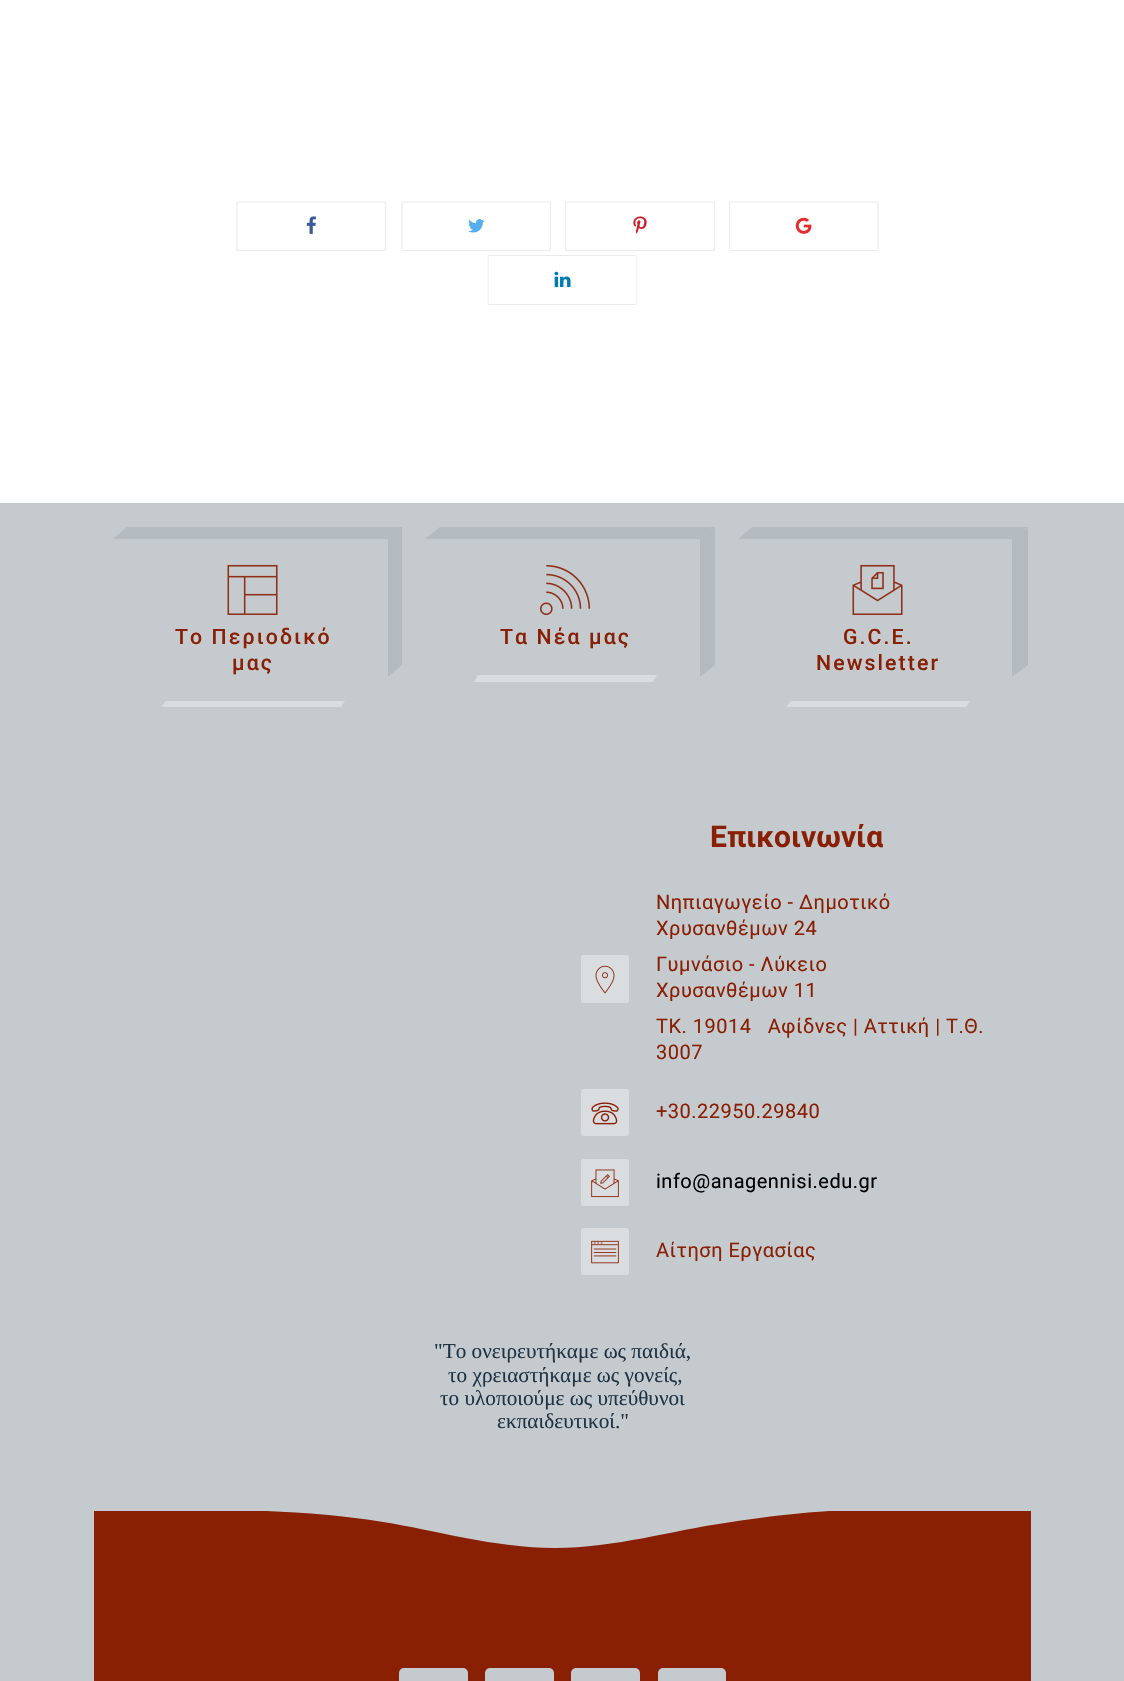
void draw(SkCanvas* canvas) {
	SkPaint paint;
	paint.setAntiAlias(true);
	auto spacedText = [&](const char* s, float x, float y, const SkFont& font, const SkPaint& ink, float letter, float word) {
		std::vector<SkGlyphID> glyphs(font.countText(s, strlen(s), SkTextEncoding::kUTF8));
		std::vector<float> xs(glyphs.size());
		font.textToGlyphs(s, strlen(s), SkTextEncoding::kUTF8, glyphs);
		font.getXPos(glyphs, xs, x);
		float extra = 0;
		for (size_t i = 0; i < glyphs.size(); i++) {
			xs[i] += extra;
			extra += letter + word * (glyphs[i] == font.unicharToGlyph(' '));
		}
		canvas->drawTextBlob(SkTextBlob::MakeFromPosHGlyphs(glyphs, xs, y, font), 0, 0, ink);
	};
	auto svgPath = [&](const char* data, bool evenOdd = false) {
		SkPath result = *SkParsePath::FromSVGString(data);
		if (evenOdd) result.setFillType(SkPathFillType::kEvenOdd);
		return result;
	};
	canvas->clear(0xffffffff);
	canvas->save();
	canvas->clipPath(svgPath("M239 201H383C385 201 386 201.5 386 202V250C386 251 385 251 383 251H239C237.5 251 236 251 236 250V202C236 201.5 237.5 201 239 201Z"), true);
	paint.setStroke(true);
	paint.setStrokeWidth(1.2);
	paint.setColor(0xffebebeb);
	canvas->drawPath(svgPath("M239 202H383H385.5V250L383 250.5H239L237 250V202Z"), paint);
	canvas->restore();
	canvas->drawImageRect(SkImages::DeferredFromEncodedData(SkData::MakeFromFileName("img1.png")), SkRect::MakeXYWH(306, 216, 10, 18), SkSamplingOptions());
	canvas->save();
	canvas->clipPath(svgPath("M404 201H548C550 201 551 201.5 551 202V250C551 251 550 251 548 251H404C402.5 251 401 251 401 250V202C401 201.5 402.5 201 404 201Z"), true);
	canvas->drawPath(svgPath("M404 202H548H550.5V250L548 250.5H404L402 250V202Z"), paint);
	canvas->restore();
	canvas->drawImageRect(SkImages::DeferredFromEncodedData(SkData::MakeFromFileName("img2.png")), SkRect::MakeXYWH(468, 219, 17, 14), SkSamplingOptions());
	canvas->save();
	canvas->clipPath(svgPath("M568 201H712C713.5 201 715 201.5 715 202V250C715 251 713.5 251 712 251H568C566.5 251 565 251 565 250V202C565 201.5 566.5 201 568 201Z"), true);
	canvas->drawPath(svgPath("M568 202H712H714.5V250L712 250.5H568L565.5 250V202Z"), paint);
	canvas->restore();
	canvas->drawImageRect(SkImages::DeferredFromEncodedData(SkData::MakeFromFileName("img3.png")), SkRect::MakeXYWH(633, 216, 14, 18), SkSamplingOptions());
	canvas->save();
	canvas->clipPath(svgPath("M732 201H876C877.5 201 879 201.5 879 202V250C879 251 877.5 251 876 251H732C730 251 729 251 729 250V202C729 201.5 730 201 732 201Z"), true);
	canvas->drawPath(svgPath("M732 202H876H878V250L876 250.5H732L729.5 250V202Z"), paint);
	canvas->restore();
	canvas->drawImageRect(SkImages::DeferredFromEncodedData(SkData::MakeFromFileName("img4.png")), SkRect::MakeXYWH(795, 217, 17, 17), SkSamplingOptions());
	canvas->save();
	canvas->clipPath(svgPath("M490.5 255H634.5C636 255 637.5 255.5 637.5 256V304C637.5 304.5 636 305 634.5 305H490.5C489 305 487.5 304.5 487.5 304V256C487.5 255.5 489 255 490.5 255Z"), true);
	canvas->drawPath(svgPath("M490.5 255.5H634.5L637 256V304L634.5 304.5H490.5L488 304V256Z"), paint);
	canvas->restore();
	canvas->drawImageRect(SkImages::DeferredFromEncodedData(SkData::MakeFromFileName("img5.png")), SkRect::MakeXYWH(554, 271, 17, 17), SkSamplingOptions());
	paint.setStroke(false);
	paint.setColor(0xffc5cace);
	canvas->drawRect(SkRect::MakeXYWH(0, 503, 1124, 1178), paint);
	paint.setColor(0xffb4bbc0);
	canvas->drawPath(svgPath("M127 527H402L388 539H113Z"), paint);
	canvas->drawPath(svgPath("M388 539L402 527V665L388 677Z"), paint);
	canvas->drawImageRect(SkImages::DeferredFromEncodedData(SkData::MakeFromFileName("img6.png")), SkRect::MakeXYWH(227, 564, 51, 51), SkSamplingOptions());
	SkFont f1(fontMgr->matchFamilyStyle("Roboto", SkFontStyle(500, SkFontStyle::kNormal_Width, SkFontStyle::kUpright_Slant)), 21.25);
	f1.setSubpixel(true);
	paint.setColor(0xff891f03);
	spacedText("Το Περιοδικό", 175, 644, f1, paint, 2.1, 0);
	spacedText("μας", 232, 670, f1, paint, 2.1, 0);
	paint.setColor(0xffd9dddf);
	canvas->drawPath(svgPath("M166 701H345L341 707H161Z"), paint);
	paint.setColor(0xffb4bbc0);
	canvas->drawPath(svgPath("M440 527H715L700 539H425Z"), paint);
	canvas->drawPath(svgPath("M700 539L715 527V665L700 677Z"), paint);
	canvas->drawImageRect(SkImages::DeferredFromEncodedData(SkData::MakeFromFileName("img7.png")), SkRect::MakeXYWH(540, 565, 51, 51), SkSamplingOptions());
	paint.setColor(0xff891f03);
	spacedText("Τα Νέα μας", 500, 644, f1, paint, 2.1, 0);
	paint.setColor(0xffd9dddf);
	canvas->drawPath(svgPath("M478 675H657L653 682H474Z"), paint);
	paint.setColor(0xffb4bbc0);
	canvas->drawPath(svgPath("M752 527H1027L1013 539H738Z"), paint);
	canvas->drawPath(svgPath("M1012 539L1028 527V665L1012 677Z"), paint);
	canvas->drawImageRect(SkImages::DeferredFromEncodedData(SkData::MakeFromFileName("img8.png")), SkRect::MakeXYWH(852, 564, 51, 51), SkSamplingOptions());
	paint.setColor(0xff891f03);
	spacedText("G.C.E.", 843, 644, f1, paint, 2.1, 0);
	spacedText("Newsletter", 816, 670, f1, paint, 2.1, 0);
	paint.setColor(0xffd9dddf);
	canvas->drawPath(svgPath("M791 701H970L966 707H786Z"), paint);
	SkFont f2(fontMgr->matchFamilyStyle("Roboto", SkFontStyle::Bold()), 30);
	f2.setSubpixel(true);
	paint.setColor(0xff891f03);
	canvas->drawString("Επικοινωνία", 710, 847, f2, paint);
	paint.setColor(0xffd9dddf);
	canvas->drawRoundRect(SkRect::MakeXYWH(581, 955, 48, 48), 2.5, 2.5, paint);
	canvas->drawImageRect(SkImages::DeferredFromEncodedData(SkData::MakeFromFileName("img9.png")), SkRect::MakeXYWH(595, 965, 20, 29), SkSamplingOptions());
	SkFont f3(fontMgr->matchFamilyStyle("Roboto", SkFontStyle::Normal()), 20);
	f3.setSubpixel(true);
	paint.setColor(0xff891f03);
	spacedText("Nηπιαγωγείο - Δημοτικό", 656, 909, f3, paint, 0.5, 0);
	spacedText("Χρυσανθέμων 24", 656, 935, f3, paint, 0.5, 0);
	spacedText("Γυμνάσιο - Λύκειο", 656, 971, f3, paint, 0.5, 0);
	spacedText("Χρυσανθέμων 11", 656, 997, f3, paint, 0.5, 0);
	spacedText("TK. 19014   Αφίδνες | Αττική | Τ.Θ.", 656, 1033, f3, paint, 0.5, 0);
	spacedText("3007", 656, 1059, f3, paint, 0.5, 0);
	paint.setColor(0xffd9dddf);
	canvas->drawRoundRect(SkRect::MakeXYWH(581, 1089, 48, 47), 2.5, 2.5, paint);
	canvas->drawImageRect(SkImages::DeferredFromEncodedData(SkData::MakeFromFileName("img10.png")), SkRect::MakeXYWH(591, 1102, 28, 23), SkSamplingOptions());
	paint.setColor(0xff891f03);
	spacedText("+30.22950.29840", 656, 1118, f3, paint, 0.5, 0);
	paint.setColor(0xffd9dddf);
	canvas->drawRoundRect(SkRect::MakeXYWH(581, 1159, 48, 47), 2.5, 2.5, paint);
	canvas->drawImageRect(SkImages::DeferredFromEncodedData(SkData::MakeFromFileName("img11.png")), SkRect::MakeXYWH(591, 1169, 28, 29), SkSamplingOptions());
	paint.setColor(0xff000000);
	spacedText("info@anagennisi.edu.gr", 656, 1188, f3, paint, 0.5, 0);
	paint.setColor(0xffd9dddf);
	canvas->drawRoundRect(SkRect::MakeXYWH(581, 1228, 48, 47), 2.5, 2.5, paint);
	canvas->drawImageRect(SkImages::DeferredFromEncodedData(SkData::MakeFromFileName("img12.png")), SkRect::MakeXYWH(591, 1240, 28, 24), SkSamplingOptions());
	paint.setColor(0xff891f03);
	spacedText("Αίτηση Εργασίας", 656, 1257, f3, paint, 0.5, 0);
	SkFont f4(fontMgr->matchFamilyStyle("Liberation Serif", SkFontStyle::Normal()), 21.25);
	f4.setSubpixel(true);
	paint.setColor(0xff1f3345);
	canvas->drawString("\"Το ονειρευτήκαμε ως παιδιά,", 434, 1358, f4, paint);
	canvas->drawString("το χρειαστήκαμε ως γονείς,", 448, 1382, f4, paint);
	canvas->drawString("το υλοποιούμε ως υπεύθυνοι", 440, 1405, f4, paint);
	canvas->drawString("εκπαιδευτικοί.\"", 497, 1428, f4, paint);
	paint.setColor(0xff891f03);
	canvas->drawRect(SkRect::MakeXYWH(94, 1511, 937, 170), paint);
	canvas->save();
	canvas->clipRect(SkRect::MakeXYWH(213, 1511, 700, 37));
	paint.setColor(0xffc5cace);
	canvas->drawPath(svgPath("M555 1548C615 1548 674 1530 725 1523C781 1514 822 1511 850 1510H234C281 1511 336 1514 383 1522C434 1530 495 1548 555 1548Z"), paint);
	canvas->restore();
	canvas->drawRoundRect(SkRect::MakeXYWH(399, 1668, 69, 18), 5, 5, paint);
	canvas->drawRoundRect(SkRect::MakeXYWH(485, 1668, 69, 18), 5, 5, paint);
	canvas->drawRoundRect(SkRect::MakeXYWH(571, 1668, 69, 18), 5, 5, paint);
	canvas->drawRoundRect(SkRect::MakeXYWH(658, 1668, 68, 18), 5, 5, paint);
}
